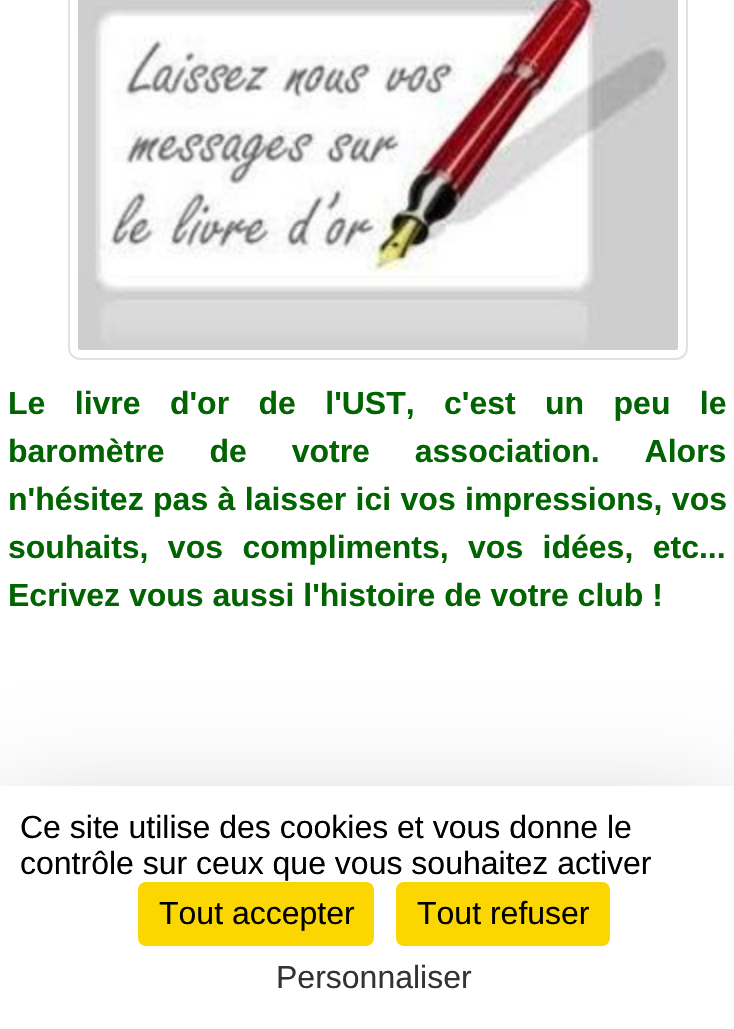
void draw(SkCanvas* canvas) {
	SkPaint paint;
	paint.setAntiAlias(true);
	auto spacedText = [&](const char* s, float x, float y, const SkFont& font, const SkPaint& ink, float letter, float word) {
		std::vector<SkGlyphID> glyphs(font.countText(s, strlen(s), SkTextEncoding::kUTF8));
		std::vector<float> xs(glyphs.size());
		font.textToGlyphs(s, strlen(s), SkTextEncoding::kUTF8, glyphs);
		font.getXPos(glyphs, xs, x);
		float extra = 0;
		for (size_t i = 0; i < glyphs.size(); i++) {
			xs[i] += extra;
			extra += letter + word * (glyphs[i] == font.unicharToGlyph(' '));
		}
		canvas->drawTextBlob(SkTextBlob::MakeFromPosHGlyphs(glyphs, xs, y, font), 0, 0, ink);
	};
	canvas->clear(0xffffffff);
	paint.setStroke(true);
	paint.setStrokeWidth(2);
	paint.setColor(0xffdee2e6);
	canvas->drawRoundRect(SkRect::MakeXYWH(69, -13, 618, 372), 11, 11, paint);
	canvas->drawImageRect(SkImages::DeferredFromEncodedData(SkData::MakeFromFileName("img1.png")), SkRect::MakeXYWH(78, 0, 600, 350), SkSamplingOptions());
	SkFont f1(fontMgr->matchFamilyStyle("Liberation Sans", SkFontStyle::Bold()), 32);
	f1.setSubpixel(true);
	paint.setStroke(false);
	paint.setColor(0xff006400);
	spacedText("Le livre d'or de l'UST, c'est un peu le", 8, 414, f1, paint, 0, 20.5);
	spacedText("baromètre de votre association. Alors", 8, 462, f1, paint, 0, 36);
	spacedText("n'hésitez pas à laisser ici vos impressions, vos", 8, 510, f1, paint, 0, 0.5);
	spacedText("souhaits, vos compliments, vos idées, etc...", 8, 558, f1, paint, 0, 10.5);
	canvas->drawString("Ecrivez vous aussi l'histoire de votre club !", 8, 606, f1, paint);
	paint.setColor(0x40000000);
	paint.setMaskFilter(SkMaskFilter::MakeBlur(kNormal_SkBlurStyle, 60));
	canvas->drawRect(SkRect::MakeXYWH(0, 826, 734, 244), paint);
	paint.setMaskFilter(nullptr);
	paint.setColor(0xffffffff);
	canvas->drawRect(SkRect::MakeXYWH(0, 786, 734, 243), paint);
	SkFont f2(fontMgr->matchFamilyStyle("Liberation Sans", SkFontStyle::Normal()), 32);
	f2.setSubpixel(true);
	paint.setColor(0xff000000);
	canvas->drawString("Ce site utilise des cookies et vous donne le", 20, 838, f2, paint);
	canvas->drawString("contrôle sur ceux que vous souhaitez activer", 20, 874, f2, paint);
	paint.setColor(0xfffbd600);
	canvas->drawRoundRect(SkRect::MakeXYWH(138, 882, 236, 64), 8, 8, paint);
	paint.setColor(0xff000000);
	canvas->drawString("Tout accepter", 159, 924, f2, paint);
	paint.setColor(0xfffbd600);
	canvas->drawRoundRect(SkRect::MakeXYWH(396, 882, 214, 64), 8, 8, paint);
	paint.setColor(0xff000000);
	canvas->drawString("Tout refuser", 417, 924, f2, paint);
	paint.setColor(0xff333333);
	canvas->drawString("Personnaliser", 276, 988, f2, paint);
}
